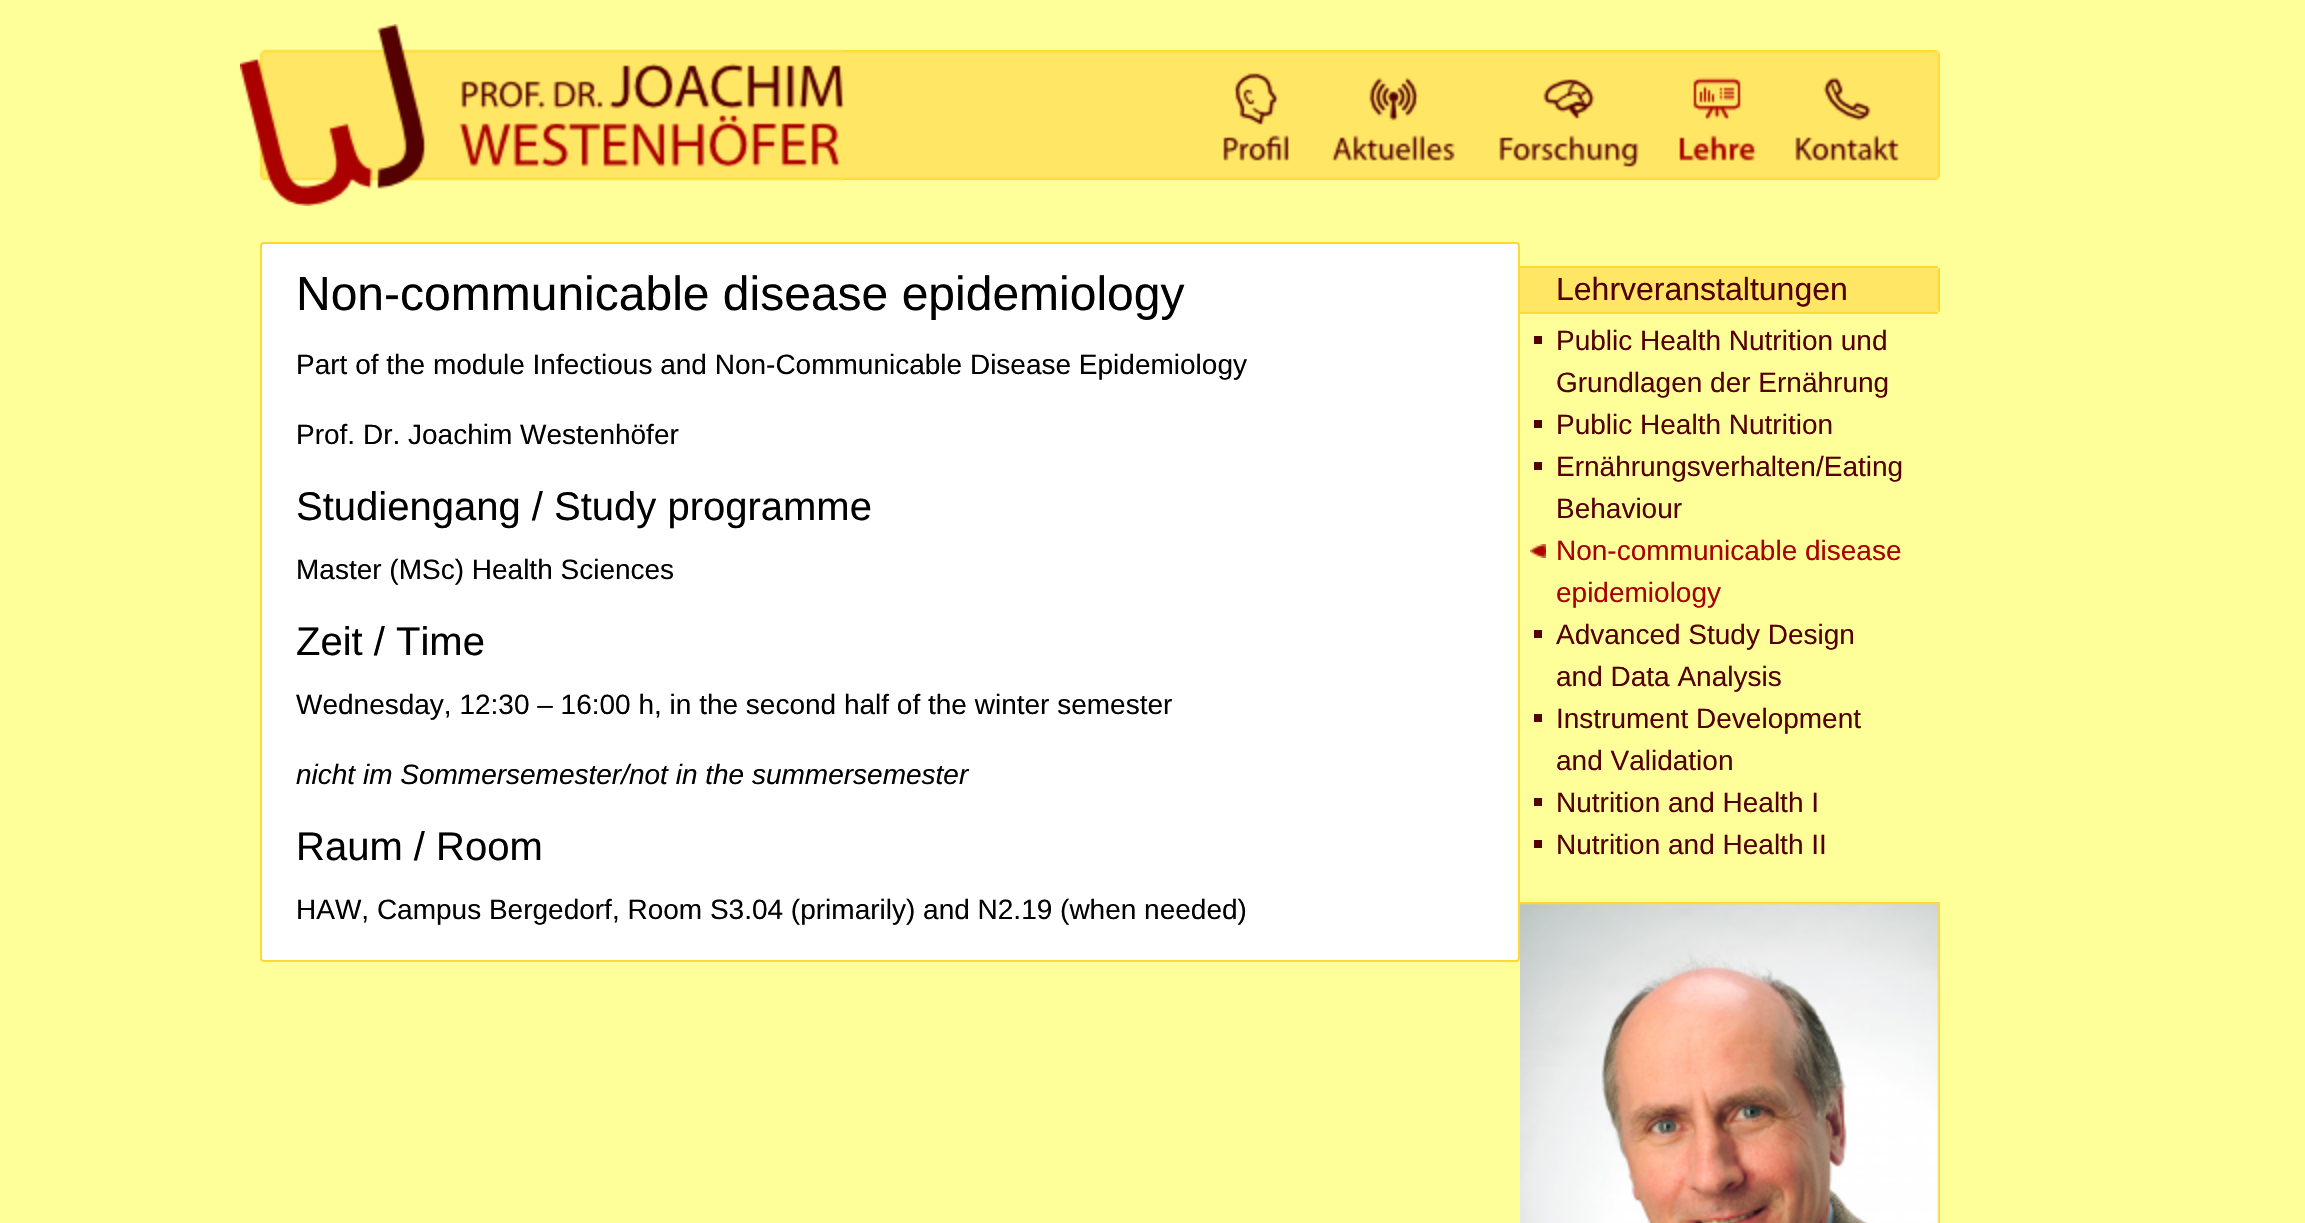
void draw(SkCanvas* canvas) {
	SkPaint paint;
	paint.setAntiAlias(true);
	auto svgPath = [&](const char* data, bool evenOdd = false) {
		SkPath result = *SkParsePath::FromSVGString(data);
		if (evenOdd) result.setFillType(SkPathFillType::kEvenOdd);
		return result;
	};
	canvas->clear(0xffffff9a);
	canvas->drawImageRect(SkImages::DeferredFromEncodedData(SkData::MakeFromFileName("img1.png")), SkRect::MakeXYWH(844, 50, 1096, 130), SkSamplingOptions());
	canvas->drawImageRect(SkImages::DeferredFromEncodedData(SkData::MakeFromFileName("img2.png")), SkRect::MakeXYWH(240, 24, 604, 182), SkSamplingOptions());
	canvas->drawImageRect(SkImages::DeferredFromEncodedData(SkData::MakeFromFileName("img3.png")), SkRect::MakeXYWH(1220, 59, 69, 102), SkSamplingOptions());
	canvas->drawImageRect(SkImages::DeferredFromEncodedData(SkData::MakeFromFileName("img4.png")), SkRect::MakeXYWH(1326, 59, 129, 102), SkSamplingOptions());
	canvas->drawImageRect(SkImages::DeferredFromEncodedData(SkData::MakeFromFileName("img5.png")), SkRect::MakeXYWH(1496, 59, 143, 109), SkSamplingOptions());
	canvas->drawImageRect(SkImages::DeferredFromEncodedData(SkData::MakeFromFileName("img6.png")), SkRect::MakeXYWH(1678, 59, 80, 102), SkSamplingOptions());
	canvas->drawImageRect(SkImages::DeferredFromEncodedData(SkData::MakeFromFileName("img7.png")), SkRect::MakeXYWH(1792, 59, 107, 102), SkSamplingOptions());
	paint.setColor(0xffffffff);
	canvas->drawRoundRect(SkRect::MakeXYWH(261, 243, 1258, 718), 3, 3, paint);
	paint.setStroke(true);
	paint.setStrokeWidth(2);
	paint.setColor(0xffffd933);
	canvas->drawRoundRect(SkRect::MakeXYWH(261, 243, 1258, 718), 3, 3, paint);
	SkFont f1(fontMgr->matchFamilyStyle("Liberation Sans", SkFontStyle::Normal()), 48);
	f1.setSubpixel(true);
	paint.setStroke(false);
	paint.setColor(0xff000000);
	canvas->drawString("Non-communicable disease epidemiology", 296, 310, f1, paint);
	SkFont f2(fontMgr->matchFamilyStyle("Liberation Sans", SkFontStyle::Normal()), 28);
	f2.setSubpixel(true);
	canvas->drawString("Part of the module Infectious and Non-Communicable Disease Epidemiology", 296, 374, f2, paint);
	canvas->drawString("Prof. Dr. Joachim Westenhöfer", 296, 444, f2, paint);
	SkFont f3(fontMgr->matchFamilyStyle("Liberation Sans", SkFontStyle::Normal()), 40);
	f3.setSubpixel(true);
	canvas->drawString("Studiengang / Study programme", 296, 520, f3, paint);
	canvas->drawString("Master (MSc) Health Sciences", 296, 579, f2, paint);
	canvas->drawString("Zeit / Time", 296, 655, f3, paint);
	canvas->drawString("Wednesday, 12:30 – 16:00 h, in the second half of the winter semester", 296, 714, f2, paint);
	SkFont f4(fontMgr->matchFamilyStyle("Liberation Sans", SkFontStyle::Italic()), 28);
	f4.setSubpixel(true);
	canvas->drawString("nicht im Sommersemester/not in the summersemester", 296, 784, f4, paint);
	canvas->drawString("Raum / Room", 296, 860, f3, paint);
	canvas->drawString("HAW, Campus Bergedorf, Room S3.04 (primarily) and N2.19 (when needed)", 296, 919, f2, paint);
	paint.setColor(0xffffe665);
	canvas->drawPath(svgPath("M1520 268H1936C1937 268 1938 269 1938 270V310C1938 311 1937 312 1936 312H1520Z"), paint);
	paint.setColor(0xffffd933);
	canvas->drawRect(SkRect::MakeXYWH(1520, 266, 418, 2), paint);
	canvas->drawRect(SkRect::MakeXYWH(1938, 268, 2, 44), paint);
	canvas->drawRect(SkRect::MakeXYWH(1520, 312, 418, 2), paint);
	SkFont f5(fontMgr->matchFamilyStyle("Liberation Sans", SkFontStyle::Normal()), 32);
	f5.setSubpixel(true);
	paint.setColor(0xff550000);
	canvas->drawString("Lehrveranstaltungen", 1556, 300, f5, paint);
	canvas->drawRect(SkRect::MakeXYWH(1534, 336, 8, 8), paint);
	canvas->drawString("Public Health Nutrition und", 1556, 350, f2, paint);
	canvas->drawString("Grundlagen der Ernährung", 1556, 392, f2, paint);
	canvas->drawRect(SkRect::MakeXYWH(1534, 420, 8, 8), paint);
	canvas->drawString("Public Health Nutrition", 1556, 434, f2, paint);
	canvas->drawRect(SkRect::MakeXYWH(1534, 462, 8, 8), paint);
	canvas->drawString("Ernährungsverhalten/Eating", 1556, 476, f2, paint);
	canvas->drawString("Behaviour", 1556, 518, f2, paint);
	canvas->drawImageRect(SkImages::DeferredFromEncodedData(SkData::MakeFromFileName("img8.png")), SkRect::MakeXYWH(1530, 544, 16, 14), SkSamplingOptions());
	paint.setColor(0xffaa0000);
	canvas->drawString("Non-communicable disease", 1556, 560, f2, paint);
	canvas->drawString("epidemiology", 1556, 602, f2, paint);
	paint.setColor(0xff550000);
	canvas->drawRect(SkRect::MakeXYWH(1534, 630, 8, 8), paint);
	canvas->drawString("Advanced Study Design", 1556, 644, f2, paint);
	canvas->drawString("and Data Analysis", 1556, 686, f2, paint);
	canvas->drawRect(SkRect::MakeXYWH(1534, 714, 8, 8), paint);
	canvas->drawString("Instrument Development", 1556, 728, f2, paint);
	canvas->drawString("and Validation", 1556, 770, f2, paint);
	canvas->drawRect(SkRect::MakeXYWH(1534, 798, 8, 8), paint);
	canvas->drawString("Nutrition and Health I", 1556, 812, f2, paint);
	canvas->drawRect(SkRect::MakeXYWH(1534, 840, 8, 8), paint);
	canvas->drawString("Nutrition and Health II", 1556, 854, f2, paint);
	canvas->drawImageRect(SkImages::DeferredFromEncodedData(SkData::MakeFromFileName("img9.png")), SkRect::MakeXYWH(1520, 902, 420, 321), SkSamplingOptions());
}
